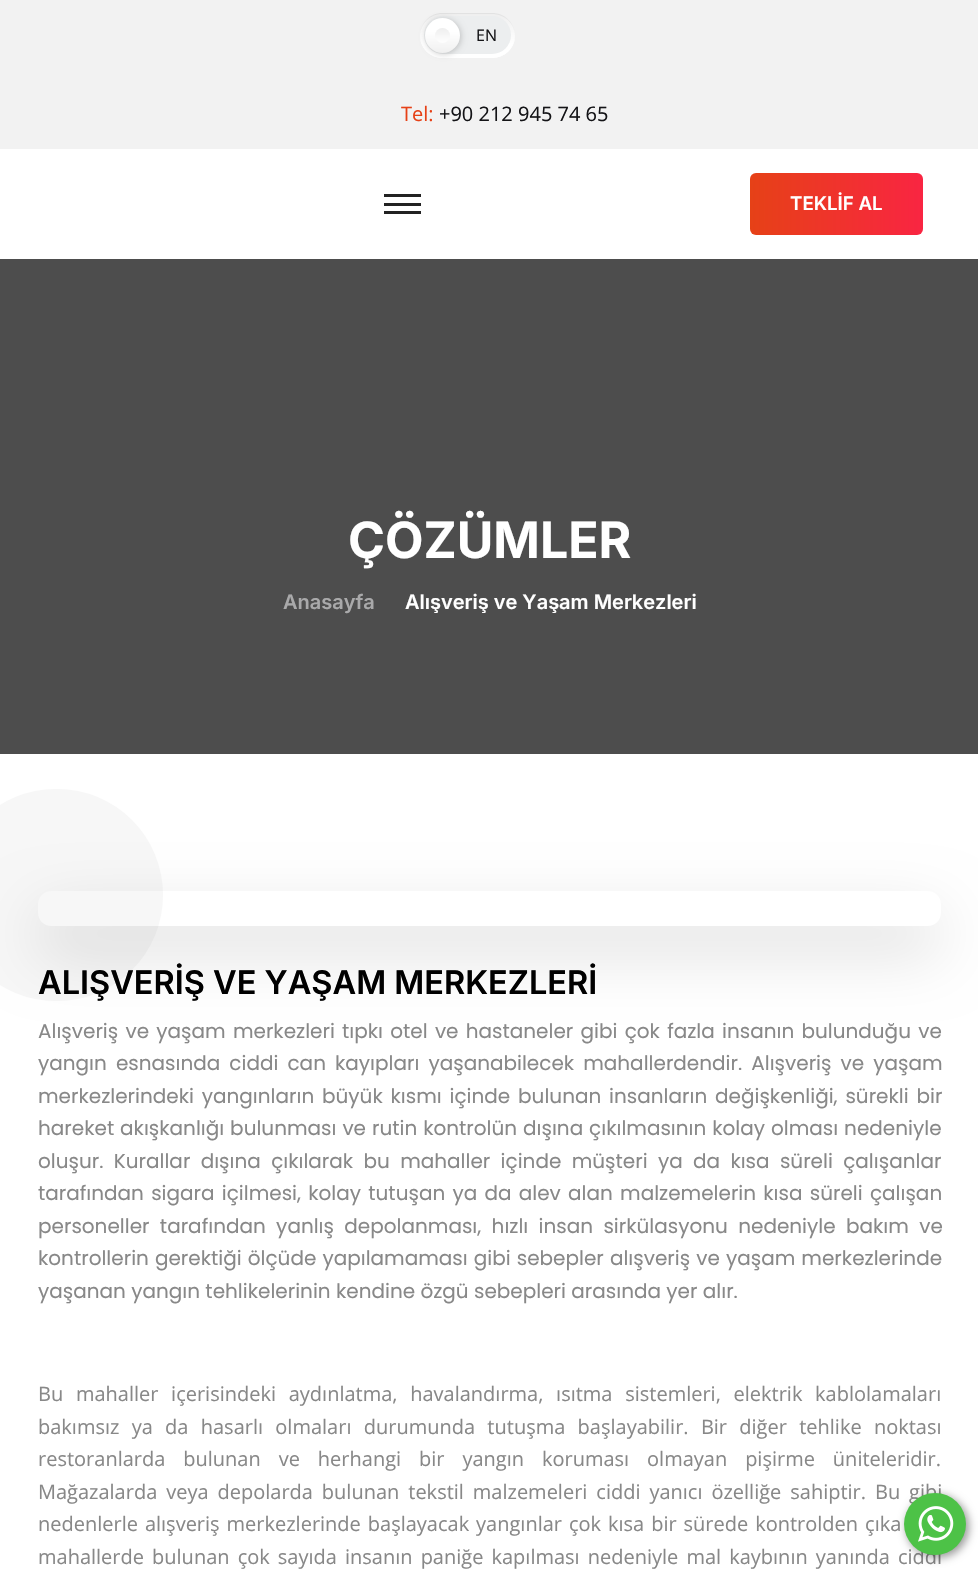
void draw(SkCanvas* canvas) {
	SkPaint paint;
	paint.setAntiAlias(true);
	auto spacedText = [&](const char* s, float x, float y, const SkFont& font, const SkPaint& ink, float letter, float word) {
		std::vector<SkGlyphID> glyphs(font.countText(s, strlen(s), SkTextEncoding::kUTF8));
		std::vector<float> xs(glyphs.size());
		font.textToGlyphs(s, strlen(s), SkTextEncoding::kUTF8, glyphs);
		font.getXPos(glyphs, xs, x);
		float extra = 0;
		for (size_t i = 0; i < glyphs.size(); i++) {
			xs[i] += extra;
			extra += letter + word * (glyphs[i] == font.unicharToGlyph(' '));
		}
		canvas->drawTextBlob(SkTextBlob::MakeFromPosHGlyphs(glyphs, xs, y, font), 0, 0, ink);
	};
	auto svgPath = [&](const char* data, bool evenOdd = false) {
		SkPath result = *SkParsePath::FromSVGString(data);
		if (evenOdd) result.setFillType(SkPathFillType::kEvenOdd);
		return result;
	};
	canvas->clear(0xffffffff);
	paint.setColor(0xfff2f2f2);
	canvas->drawRect(SkRect::MakeXYWH(0, 0, 978, 149), paint);
	{
		const SkColor colors[] = {0xffeeeeee, 0xffffffff};
		const float stops[] = {0, 0.69};
		const SkPoint ends[] = {{468, 12}, {468, 58}};
		paint.setShader(SkGradientShader::MakeLinear(ends, colors, stops, 2, SkTileMode::kClamp));
		paint.setAlpha(255);
	}
	canvas->drawRoundRect(SkRect::MakeXYWH(420, 13, 95, 45), 22.5, 22.5, paint);
	paint.setShader(nullptr);
	paint.setColor(0x0d000000);
	canvas->drawPath(svgPath("M442 14H492C505 14 515 24 515 36C515 23 505 13 492 13H442C430 13 420 23 420 36C420 24 430 14 442 14Z"), paint);
	paint.setColor(0xffffffff);
	canvas->drawPath(svgPath("M420 35V36C420 48 430 58 442 58H492C505 58 515 48 515 36V35C515 46 505 56 492 56H442C430 56 420 46 420 35Z"), paint);
	paint.setColor(0xffeceeef);
	canvas->drawRoundRect(SkRect::MakeXYWH(424, 16, 87, 38), 19, 19, paint);
	paint.setColor(0x33000000);
	paint.setMaskFilter(SkMaskFilter::MakeBlur(kNormal_SkBlurStyle, 3));
	canvas->drawRoundRect(SkRect::MakeXYWH(426, 19, 35, 35), 17.5, 17.5, paint);
	paint.setMaskFilter(nullptr);
	{
		const SkColor colors[] = {0xffffffff, 0xfff0f0f0};
		const float stops[] = {0.4, 1};
		const SkPoint ends[] = {{443, 17}, {443, 53}};
		paint.setShader(SkGradientShader::MakeLinear(ends, colors, stops, 2, SkTileMode::kClamp));
		paint.setAlpha(255);
	}
	canvas->drawCircle(442.5, 35.5, 17.5, paint);
	{
		const SkColor colors[] = {0xffeeeeee, 0xffffffff};
		const float stops[] = {0, 1};
		const SkPoint ends[] = {{443, 28}, {443, 43}};
		paint.setShader(SkGradientShader::MakeLinear(ends, colors, stops, 2, SkTileMode::kClamp));
		paint.setAlpha(255);
	}
	canvas->drawCircle(442.5, 35.5, 7.5, paint);
	SkFont f1(fontMgr->matchFamilyStyle("Open Sans", SkFontStyle::Normal()), 16);
	f1.setSubpixel(true);
	paint.setShader(nullptr);
	paint.setColor(0xff141417);
	canvas->drawString("EN", 476, 41, f1, paint);
	SkFont f2(fontMgr->matchFamilyStyle("Open Sans", SkFontStyle::Normal()), 20);
	f2.setSubpixel(true);
	paint.setColor(0xffe64117);
	canvas->drawString("Tel:", 401, 121, f2, paint);
	paint.setColor(0xff141417);
	canvas->drawString("+90 212 945 74 65", 439, 121, f2, paint);
	paint.setColor(0xff222222);
	canvas->drawRect(SkRect::MakeXYWH(384, 194, 37, 3), paint);
	canvas->drawRect(SkRect::MakeXYWH(384, 203, 37, 3), paint);
	canvas->drawRect(SkRect::MakeXYWH(384, 211, 37, 3), paint);
	{
		const SkColor colors[] = {0xffe64117, 0xfff92542};
		const float stops[] = {0, 1};
		const SkPoint ends[] = {{750, 204}, {923, 204}};
		paint.setShader(SkGradientShader::MakeLinear(ends, colors, stops, 2, SkTileMode::kClamp));
		paint.setAlpha(255);
	}
	canvas->drawRoundRect(SkRect::MakeXYWH(750, 173, 173, 62), 6, 6, paint);
	SkFont f3(fontMgr->matchFamilyStyle("Inter", SkFontStyle(600, SkFontStyle::kNormal_Width, SkFontStyle::kUpright_Slant)), 18.75);
	f3.setSubpixel(true);
	paint.setShader(nullptr);
	paint.setColor(0xffffffff);
	canvas->drawString("TEKLİF AL", 790, 210, f3, paint);
	paint.setColor(0xff4d4d4d);
	canvas->drawRect(SkRect::MakeXYWH(0, 259, 978, 495), paint);
	SkFont f4(fontMgr->matchFamilyStyle("Inter", SkFontStyle::Bold()), 50);
	f4.setSubpixel(true);
	paint.setColor(0xffffffff);
	canvas->drawString("ÇÖZÜMLER", 348, 558, f4, paint);
	SkFont f5(fontMgr->matchFamilyStyle("Inter", SkFontStyle(600, SkFontStyle::kNormal_Width, SkFontStyle::kUpright_Slant)), 20);
	f5.setSubpixel(true);
	paint.setColor(0xffa9a9aa);
	canvas->drawString("Anasayfa", 283, 609, f5, paint);
	paint.setColor(0xffffffff);
	canvas->drawString("Alışveriş ve Yaşam Merkezleri", 405, 609, f5, paint);
	paint.setColor(0xfff7f7f7);
	canvas->drawRoundRect(SkRect::MakeXYWH(-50, 789, 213, 212), 106, 106, paint);
	canvas->save();
	canvas->clipPath(svgPath("M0 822H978V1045H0ZM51 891H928C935 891 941 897 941 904V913C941 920 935 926 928 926H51C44 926 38 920 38 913V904C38 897 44 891 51 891Z", true), true);
	paint.setColor(0x26000000);
	paint.setMaskFilter(SkMaskFilter::MakeBlur(kNormal_SkBlurStyle, 31));
	canvas->drawRoundRect(SkRect::MakeXYWH(38, 916, 903, 35), 13, 13, paint);
	paint.setMaskFilter(nullptr);
	canvas->restore();
	SkFont f6(fontMgr->matchFamilyStyle("Inter", SkFontStyle(600, SkFontStyle::kNormal_Width, SkFontStyle::kUpright_Slant)), 32.5);
	f6.setSubpixel(true);
	paint.setColor(0xff000000);
	canvas->drawString("ALIŞVERİŞ VE YAŞAM MERKEZLERİ", 38, 994, f6, paint);
	SkFont f7(fontMgr->matchFamilyStyle("Poppins", SkFontStyle::Normal()), 20);
	f7.setSubpixel(true);
	paint.setColor(0xff888888);
	spacedText("Alışveriş ve yaşam merkezleri tıpkı otel ve hastaneler gibi çok fazla insanın bulunduğu ve", 38, 1038, f7, paint, 0, 1.9);
	spacedText("yangın esnasında ciddi can kayıpları yaşanabilecek mahallerdendir. Alışveriş ve yaşam", 38, 1070, f7, paint, 0, 3.75);
	spacedText("merkezlerindeki yangınların büyük kısmı içinde bulunan insanların değişkenliği, sürekli bir", 38, 1103, f7, paint, 0, 2.5);
	spacedText("hareket akışkanlığı bulunması ve rutin kontrolün dışına çıkılmasının kolay olması nedeniyle", 38, 1135, f7, paint, 0, 0.6);
	spacedText("oluşur. Kurallar dışına çıkılarak bu mahaller içinde müşteri ya da kısa süreli çalışanlar", 38, 1168, f7, paint, 0, 5);
	spacedText("tarafından sigara içilmesi, kolay tutuşan ya da alev alan malzemelerin kısa süreli çalışan", 38, 1200, f7, paint, 0, 1.9);
	spacedText("personeller tarafından yanlış depolanması, hızlı insan sirkülasyonu nedeniyle bakım ve", 38, 1233, f7, paint, 0, 5);
	spacedText("kontrollerin gerektiği ölçüde yapılamaması gibi sebepler alışveriş ve yaşam merkezlerinde", 38, 1265, f7, paint, 0, 0.75);
	canvas->drawString("yaşanan yangın tehlikelerinin kendine özgü sebepleri arasında yer alır.", 38, 1298, f7, paint);
	spacedText("Bu mahaller içerisindeki aydınlatma, havalandırma, ısıtma sistemleri, elektrik kablolamaları", 38, 1401, f2, paint, 0, 7.5);
	spacedText("bakımsız ya da hasarlı olmaları durumunda tutuşma başlayabilir. Bir diğer tehlike noktası", 38, 1434, f2, paint, 0, 7.1);
	spacedText("restoranlarda bulunan ve herhangi bir yangın koruması olmayan pişirme üniteleridir.", 38, 1466, f2, paint, 0, 12.75);
	spacedText("Mağazalarda veya depolarda bulunan tekstil malzemeleri ciddi yanıcı özelliğe sahiptir. Bu gibi", 38, 1499, f2, paint, 0, 3.75);
	spacedText("nedenlerle alışveriş merkezlerinde başlayacak yangınlar çok kısa bir sürede kontrolden çıka", 38, 1531, f2, paint, 0, 1.75);
	spacedText("mahallerde bulunan çok sayıda insanın paniğe kapılması nedeniyle mal kaybının yanında ciddi", 38, 1564, f2, paint, 0, 2.9);
	paint.setColor(0x66000000);
	paint.setMaskFilter(SkMaskFilter::MakeBlur(kNormal_SkBlurStyle, 4));
	canvas->drawRoundRect(SkRect::MakeXYWH(906, 1495, 63, 63), 31.5, 31.5, paint);
	paint.setMaskFilter(nullptr);
	paint.setColor(0xff4dc247);
	canvas->drawCircle(935, 1524, 31, paint);
	canvas->drawImageRect(SkImages::DeferredFromEncodedData(SkData::MakeFromFileName("img1.png")), SkRect::MakeXYWH(918, 1506, 36, 36), SkSamplingOptions());
}
